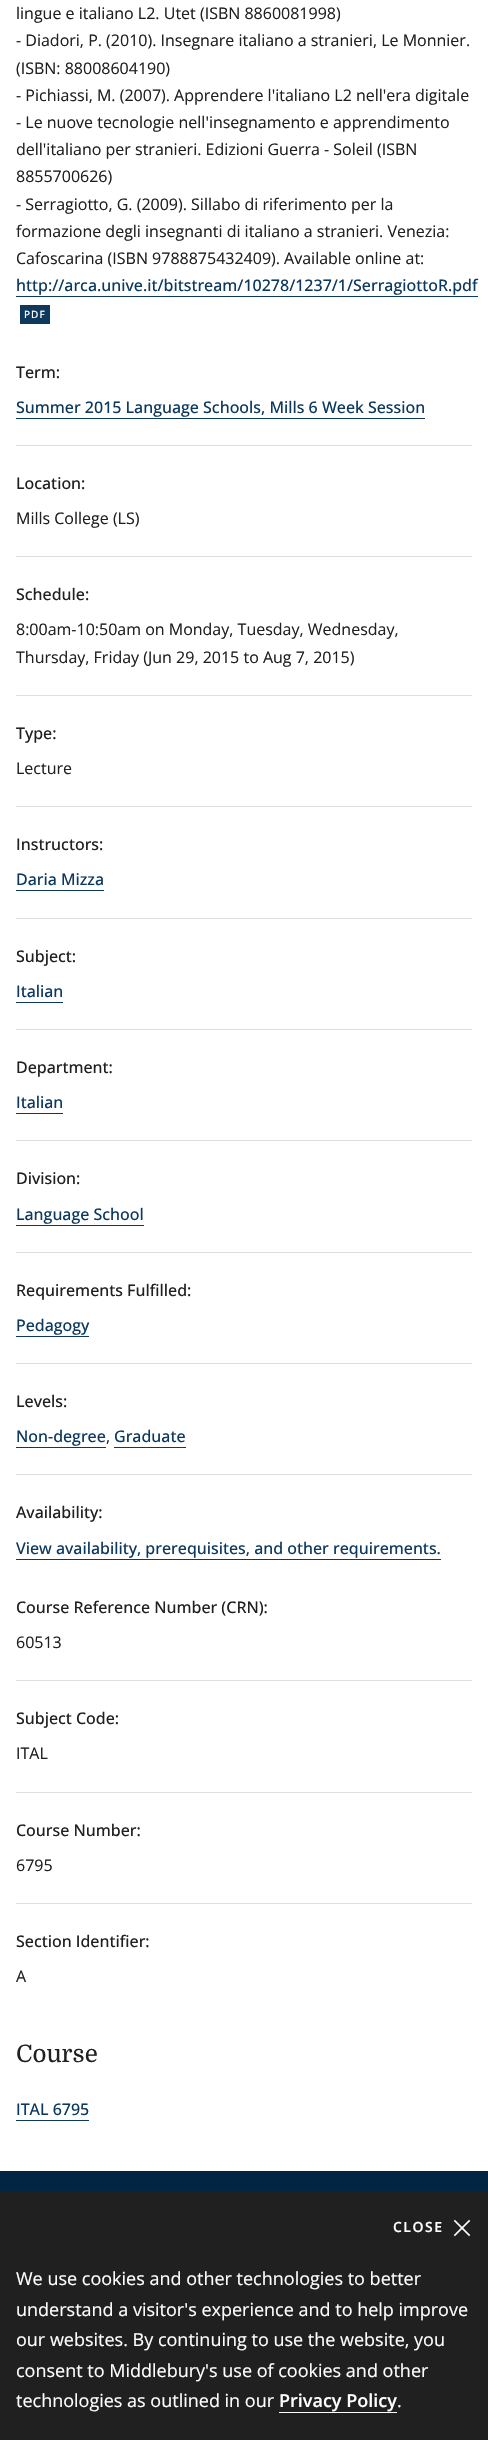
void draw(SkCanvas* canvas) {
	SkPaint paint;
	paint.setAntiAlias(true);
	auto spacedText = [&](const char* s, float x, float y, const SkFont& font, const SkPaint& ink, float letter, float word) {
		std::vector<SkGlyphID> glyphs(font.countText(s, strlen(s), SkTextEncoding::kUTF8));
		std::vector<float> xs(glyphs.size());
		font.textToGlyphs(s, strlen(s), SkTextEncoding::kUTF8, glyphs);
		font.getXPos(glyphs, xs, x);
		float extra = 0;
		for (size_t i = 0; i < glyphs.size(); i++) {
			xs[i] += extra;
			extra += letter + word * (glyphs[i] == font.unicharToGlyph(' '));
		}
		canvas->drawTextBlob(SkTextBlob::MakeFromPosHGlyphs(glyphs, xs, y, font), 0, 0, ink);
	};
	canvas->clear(0xffffffff);
	SkFont f1(fontMgr->matchFamilyStyle("Open Sans", SkFontStyle::Normal()), 16);
	f1.setSubpixel(true);
	paint.setColor(0xff202020);
	canvas->drawString("lingue e italiano L2. Utet (ISBN 8860081998)", 16, 19, f1, paint);
	canvas->drawString("- Diadori, P. (2010). Insegnare italiano a stranieri, Le Monnier.", 16, 46, f1, paint);
	canvas->drawString("(ISBN: 88008604190)", 16, 74, f1, paint);
	canvas->drawString("- Pichiassi, M. (2007). Apprendere l'italiano L2 nell'era digitale", 16, 101, f1, paint);
	canvas->drawString("- Le nuove tecnologie nell'insegnamento e apprendimento", 16, 128, f1, paint);
	canvas->drawString("dell'italiano per stranieri. Edizioni Guerra - Soleil (ISBN", 16, 155, f1, paint);
	canvas->drawString("8855700626)", 16, 182, f1, paint);
	canvas->drawString("- Serragiotto, G. (2009). Sillabo di riferimento per la", 16, 210, f1, paint);
	canvas->drawString("formazione degli insegnanti di italiano a stranieri. Venezia:", 16, 237, f1, paint);
	canvas->drawString("Cafoscarina (ISBN 9788875432409). Available online at:", 16, 264, f1, paint);
	paint.setColor(0xff0d395f);
	canvas->drawRect(SkRect::MakeXYWH(16, 296, 462, 1), paint);
	canvas->drawRect(SkRect::MakeXYWH(20, 305, 30, 19), paint);
	SkFont f2(fontMgr->matchFamilyStyle("Open Sans", SkFontStyle(500, SkFontStyle::kNormal_Width, SkFontStyle::kUpright_Slant)), 16);
	f2.setSubpixel(true);
	canvas->drawString("http://arca.unive.it/bitstream/10278/1237/1/SerragiottoR.pdf", 16, 291, f2, paint);
	SkFont f3(fontMgr->matchFamilyStyle("Open Sans", SkFontStyle(500, SkFontStyle::kNormal_Width, SkFontStyle::kUpright_Slant)), 10);
	f3.setSubpixel(true);
	paint.setColor(0xffffffff);
	spacedText("PDF", 24, 318, f3, paint, 1, 0);
	paint.setColor(0xff202020);
	canvas->drawString("Term:", 16, 378, f2, paint);
	paint.setColor(0xffdedede);
	canvas->drawRect(SkRect::MakeXYWH(16, 445, 456, 1), paint);
	paint.setColor(0xff0d395f);
	canvas->drawString("Summer 2015 Language Schools, Mills 6 Week Session", 16, 413, f2, paint);
	canvas->drawRect(SkRect::MakeXYWH(16, 418, 409, 1), paint);
	paint.setColor(0xff202020);
	canvas->drawString("Location:", 16, 489, f2, paint);
	paint.setColor(0xffdedede);
	canvas->drawRect(SkRect::MakeXYWH(16, 556, 456, 1), paint);
	paint.setColor(0xff202020);
	canvas->drawString("Mills College (LS)", 16, 524, f1, paint);
	canvas->drawString("Schedule:", 16, 600, f2, paint);
	paint.setColor(0xffdedede);
	canvas->drawRect(SkRect::MakeXYWH(16, 695, 456, 1), paint);
	paint.setColor(0xff202020);
	canvas->drawString("8:00am-10:50am on Monday, Tuesday, Wednesday,", 16, 635, f1, paint);
	canvas->drawString("Thursday, Friday (Jun 29, 2015 to Aug 7, 2015)", 16, 663, f1, paint);
	canvas->drawString("Type:", 16, 739, f2, paint);
	paint.setColor(0xffdedede);
	canvas->drawRect(SkRect::MakeXYWH(16, 806, 456, 1), paint);
	paint.setColor(0xff202020);
	canvas->drawString("Lecture", 16, 774, f1, paint);
	canvas->drawString("Instructors:", 16, 850, f2, paint);
	paint.setColor(0xffdedede);
	canvas->drawRect(SkRect::MakeXYWH(16, 918, 456, 1), paint);
	paint.setColor(0xff0d395f);
	canvas->drawString("Daria Mizza", 16, 885, f2, paint);
	canvas->drawRect(SkRect::MakeXYWH(16, 890, 88, 1), paint);
	paint.setColor(0xff202020);
	canvas->drawString("Subject:", 16, 962, f2, paint);
	paint.setColor(0xffdedede);
	canvas->drawRect(SkRect::MakeXYWH(16, 1029, 456, 1), paint);
	paint.setColor(0xff0d395f);
	canvas->drawString("Italian", 16, 997, f2, paint);
	canvas->drawRect(SkRect::MakeXYWH(16, 1002, 47, 1), paint);
	paint.setColor(0xff202020);
	canvas->drawString("Department:", 16, 1073, f2, paint);
	paint.setColor(0xffdedede);
	canvas->drawRect(SkRect::MakeXYWH(16, 1140, 456, 1), paint);
	paint.setColor(0xff0d395f);
	canvas->drawString("Italian", 16, 1108, f2, paint);
	canvas->drawRect(SkRect::MakeXYWH(16, 1113, 47, 1), paint);
	paint.setColor(0xff202020);
	canvas->drawString("Division:", 16, 1184, f2, paint);
	paint.setColor(0xffdedede);
	canvas->drawRect(SkRect::MakeXYWH(16, 1252, 456, 1), paint);
	paint.setColor(0xff0d395f);
	canvas->drawString("Language School", 16, 1220, f2, paint);
	canvas->drawRect(SkRect::MakeXYWH(16, 1225, 128, 1), paint);
	paint.setColor(0xff202020);
	canvas->drawString("Requirements Fulfilled:", 16, 1296, f2, paint);
	paint.setColor(0xffdedede);
	canvas->drawRect(SkRect::MakeXYWH(16, 1363, 456, 1), paint);
	paint.setColor(0xff0d395f);
	canvas->drawString("Pedagogy", 16, 1331, f2, paint);
	canvas->drawRect(SkRect::MakeXYWH(16, 1336, 73, 1), paint);
	paint.setColor(0xff202020);
	canvas->drawString("Levels:", 16, 1407, f2, paint);
	paint.setColor(0xffdedede);
	canvas->drawRect(SkRect::MakeXYWH(16, 1474, 456, 1), paint);
	paint.setColor(0xff0d395f);
	canvas->drawString("Non-degree", 16, 1442, f2, paint);
	canvas->drawRect(SkRect::MakeXYWH(16, 1447, 90, 1), paint);
	paint.setColor(0xff202020);
	canvas->drawString(",", 106, 1442, f1, paint);
	paint.setColor(0xff0d395f);
	canvas->drawString("Graduate", 114, 1442, f2, paint);
	canvas->drawRect(SkRect::MakeXYWH(114, 1447, 72, 1), paint);
	paint.setColor(0xff202020);
	canvas->drawString("Availability:", 16, 1518, f2, paint);
	paint.setColor(0xff0d395f);
	canvas->drawString("View availability, prerequisites, and other requirements.", 16, 1554, f2, paint);
	canvas->drawRect(SkRect::MakeXYWH(16, 1559, 425, 1), paint);
	paint.setColor(0xff202020);
	canvas->drawString("Course Reference Number (CRN):", 16, 1613, f2, paint);
	paint.setColor(0xffdedede);
	canvas->drawRect(SkRect::MakeXYWH(16, 1680, 456, 1), paint);
	paint.setColor(0xff202020);
	canvas->drawString("60513", 16, 1648, f1, paint);
	canvas->drawString("Subject Code:", 16, 1724, f2, paint);
	paint.setColor(0xffdedede);
	canvas->drawRect(SkRect::MakeXYWH(16, 1792, 456, 1), paint);
	paint.setColor(0xff202020);
	canvas->drawString("ITAL", 16, 1759, f1, paint);
	canvas->drawString("Course Number:", 16, 1836, f2, paint);
	paint.setColor(0xffdedede);
	canvas->drawRect(SkRect::MakeXYWH(16, 1903, 456, 1), paint);
	paint.setColor(0xff202020);
	canvas->drawString("6795", 16, 1871, f1, paint);
	canvas->drawString("Section Identifier:", 16, 1947, f2, paint);
	canvas->drawString("A", 16, 1982, f1, paint);
	SkFont f4(fontMgr->matchFamilyStyle("Domine", SkFontStyle::Normal()), 24);
	f4.setSubpixel(true);
	canvas->drawString("Course", 16, 2062, f4, paint);
	paint.setColor(0xff0d395f);
	canvas->drawString("ITAL 6795", 16, 2115, f2, paint);
	canvas->drawRect(SkRect::MakeXYWH(16, 2120, 73, 1), paint);
	paint.setColor(0xff022543);
	canvas->drawRect(SkRect::MakeXYWH(0, 2171, 488, 20), paint);
	paint.setColor(0xff202020);
	canvas->drawRect(SkRect::MakeXYWH(0, 2191, 488, 249), paint);
	SkFont f5(fontMgr->matchFamilyStyle("Open Sans", SkFontStyle(600, SkFontStyle::kNormal_Width, SkFontStyle::kUpright_Slant)), 14);
	f5.setSubpixel(true);
	paint.setColor(0xffffffff);
	spacedText("CLOSE", 393, 2232, f5, paint, 1.5, 0);
	canvas->drawImageRect(SkImages::DeferredFromEncodedData(SkData::MakeFromFileName("img1.png")), SkRect::MakeXYWH(453, 2219, 18, 18), SkSamplingOptions());
	SkFont f6(fontMgr->matchFamilyStyle("Open Sans", SkFontStyle::Normal()), 18);
	f6.setSubpixel(true);
	canvas->drawString("We use cookies and other technologies to better", 16, 2285, f6, paint);
	canvas->drawString("understand a visitor's experience and to help improve", 16, 2316, f6, paint);
	canvas->drawString("our websites. By continuing to use the website, you", 16, 2346, f6, paint);
	canvas->drawString("consent to Middlebury's use of cookies and other", 16, 2377, f6, paint);
	canvas->drawString("technologies as outlined in our", 16, 2407, f6, paint);
	SkFont f7(fontMgr->matchFamilyStyle("Open Sans", SkFontStyle(600, SkFontStyle::kNormal_Width, SkFontStyle::kUpright_Slant)), 18);
	f7.setSubpixel(true);
	canvas->drawString("Privacy Policy", 279, 2407, f7, paint);
	canvas->drawRect(SkRect::MakeXYWH(279, 2412, 118, 1), paint);
	canvas->drawString(".", 397, 2407, f6, paint);
}
